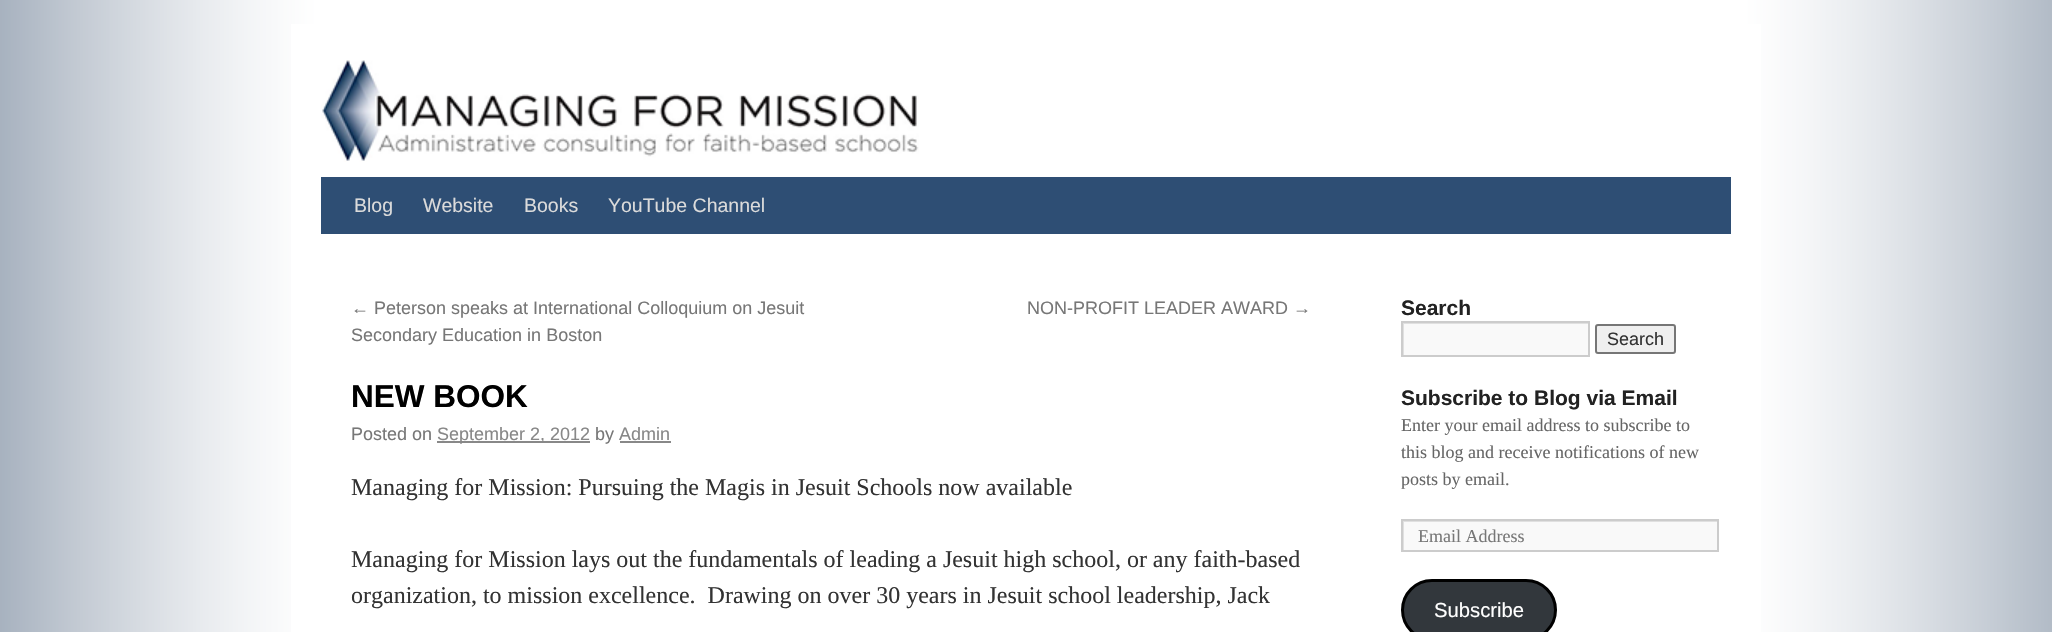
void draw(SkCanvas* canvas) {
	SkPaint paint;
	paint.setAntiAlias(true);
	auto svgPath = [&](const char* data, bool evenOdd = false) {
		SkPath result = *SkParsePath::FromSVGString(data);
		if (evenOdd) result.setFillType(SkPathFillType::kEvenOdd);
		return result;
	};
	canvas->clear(0xffffffff);
	canvas->drawImageRect(SkImages::DeferredFromEncodedData(SkData::MakeFromFileName("img1.png")), SkRect::MakeXYWH(0, 0, 2052, 632), SkSamplingOptions());
	paint.setColor(0xffffffff);
	canvas->drawRect(SkRect::MakeXYWH(291, 24, 1470, 608), paint);
	canvas->drawImageRect(SkImages::DeferredFromEncodedData(SkData::MakeFromFileName("img2.png")), SkRect::MakeXYWH(321, 60, 598, 102), SkSamplingOptions());
	paint.setColor(0xff2e4e74);
	canvas->drawRect(SkRect::MakeXYWH(321, 177, 1410, 57), paint);
	SkFont f1(fontMgr->matchFamilyStyle("Liberation Sans", SkFontStyle::Normal()), 19.5);
	f1.setSubpixel(true);
	paint.setColor(0xffdbdbdb);
	canvas->drawString("Blog", 354, 212, f1, paint);
	canvas->drawString("Website", 423, 212, f1, paint);
	canvas->drawString("Books", 524, 212, f1, paint);
	canvas->drawString("YouTube Channel", 608, 212, f1, paint);
	SkFont f2(fontMgr->matchFamilyStyle("Liberation Sans", SkFontStyle::Normal()), 18);
	f2.setSubpixel(true);
	paint.setColor(0xff777777);
	canvas->drawString("← Peterson speaks at International Colloquium on Jesuit", 351, 314, f2, paint);
	canvas->drawString("Secondary Education in Boston", 351, 341, f2, paint);
	canvas->drawString("NON-PROFIT LEADER AWARD →", 1027, 314, f2, paint);
	SkFont f3(fontMgr->matchFamilyStyle("Liberation Sans", SkFontStyle::Bold()), 31.5);
	f3.setSubpixel(true);
	paint.setColor(0xff000000);
	canvas->drawString("NEW BOOK", 351, 407, f3, paint);
	paint.setColor(0xff777777);
	canvas->drawString("Posted on", 351, 440, f2, paint);
	paint.setColor(0xff888888);
	canvas->drawRect(SkRect::MakeXYWH(437, 441, 153, 2), paint);
	canvas->drawString("September 2, 2012", 437, 440, f2, paint);
	paint.setColor(0xff777777);
	canvas->drawString("by", 595, 440, f2, paint);
	paint.setColor(0xff888888);
	canvas->drawString("Admin", 619, 440, f2, paint);
	canvas->drawRect(SkRect::MakeXYWH(620, 441, 51, 2), paint);
	SkFont f4(fontMgr->matchFamilyStyle("Liberation Serif", SkFontStyle::Normal()), 24);
	f4.setSubpixel(true);
	paint.setColor(0xff333333);
	canvas->drawString("Managing for Mission: Pursuing the Magis in Jesuit Schools now available", 351, 495, f4, paint);
	canvas->drawString("Managing for Mission lays out the fundamentals of leading a Jesuit high school, or any faith-based", 351, 567, f4, paint);
	canvas->drawString("organization, to mission excellence.  Drawing on over 30 years in Jesuit school leadership, Jack", 351, 603, f4, paint);
	SkFont f5(fontMgr->matchFamilyStyle("Liberation Sans", SkFontStyle::Bold()), 21);
	f5.setSubpixel(true);
	paint.setColor(0xff222222);
	canvas->drawString("Search", 1401, 315, f5, paint);
	paint.setColor(0xfff9f9f9);
	canvas->drawRect(SkRect::MakeXYWH(1404, 324, 184, 31), paint);
	canvas->save();
	canvas->clipRect(SkRect::MakeXYWH(1403, 323, 186, 33));
	paint.setColor(0xffe0e0e0);
	canvas->drawPath(svgPath("M1254 174H1737V504H1254ZM1404 324H1590V357H1404Z", true), paint);
	canvas->restore();
	paint.setStroke(true);
	paint.setStrokeWidth(2);
	paint.setColor(0xffcccccc);
	canvas->drawRect(SkRect::MakeXYWH(1402, 322, 187, 34), paint);
	paint.setStroke(false);
	paint.setColor(0xffefefef);
	canvas->drawRoundRect(SkRect::MakeXYWH(1596, 325, 79, 28), 2, 2, paint);
	paint.setStroke(true);
	paint.setColor(0xff767676);
	canvas->drawRoundRect(SkRect::MakeXYWH(1596, 325, 79, 28), 2, 2, paint);
	paint.setStroke(false);
	paint.setColor(0xff333333);
	canvas->drawString("Search", 1607, 345, f2, paint);
	paint.setColor(0xff222222);
	canvas->drawString("Subscribe to Blog via Email", 1401, 405, f5, paint);
	SkFont f6(fontMgr->matchFamilyStyle("Liberation Serif", SkFontStyle::Normal()), 18);
	f6.setSubpixel(true);
	paint.setColor(0xff666666);
	canvas->drawString("Enter your email address to subscribe to", 1401, 431, f6, paint);
	canvas->drawString("this blog and receive notifications of new", 1401, 458, f6, paint);
	canvas->drawString("posts by email.", 1401, 485, f6, paint);
	paint.setColor(0xfff9f9f9);
	canvas->drawRect(SkRect::MakeXYWH(1404, 522, 313, 28), paint);
	canvas->save();
	canvas->clipRect(SkRect::MakeXYWH(1403, 521, 315, 30));
	paint.setColor(0xffe0e0e0);
	canvas->drawPath(svgPath("M1254 372H1866V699H1254ZM1404 522H1719V552H1404Z", true), paint);
	canvas->restore();
	paint.setStroke(true);
	paint.setColor(0xffcccccc);
	canvas->drawRect(SkRect::MakeXYWH(1402, 520, 316, 31), paint);
	paint.setStroke(false);
	paint.setColor(0xff777777);
	canvas->drawString("Email Address", 1418, 542, f6, paint);
	paint.setColor(0xff32373c);
	canvas->drawRoundRect(SkRect::MakeXYWH(1402.5, 580.5, 153, 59), 29.5, 29.5, paint);
	paint.setStroke(true);
	paint.setStrokeWidth(3);
	paint.setColor(0xff000000);
	canvas->drawRoundRect(SkRect::MakeXYWH(1402.5, 580.5, 153, 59), 29.5, 29.5, paint);
	SkFont f7(fontMgr->matchFamilyStyle("Liberation Sans", SkFontStyle::Normal()), 20.25);
	f7.setSubpixel(true);
	paint.setStroke(false);
	paint.setColor(0xffffffff);
	canvas->drawString("Subscribe", 1434, 617, f7, paint);
}
